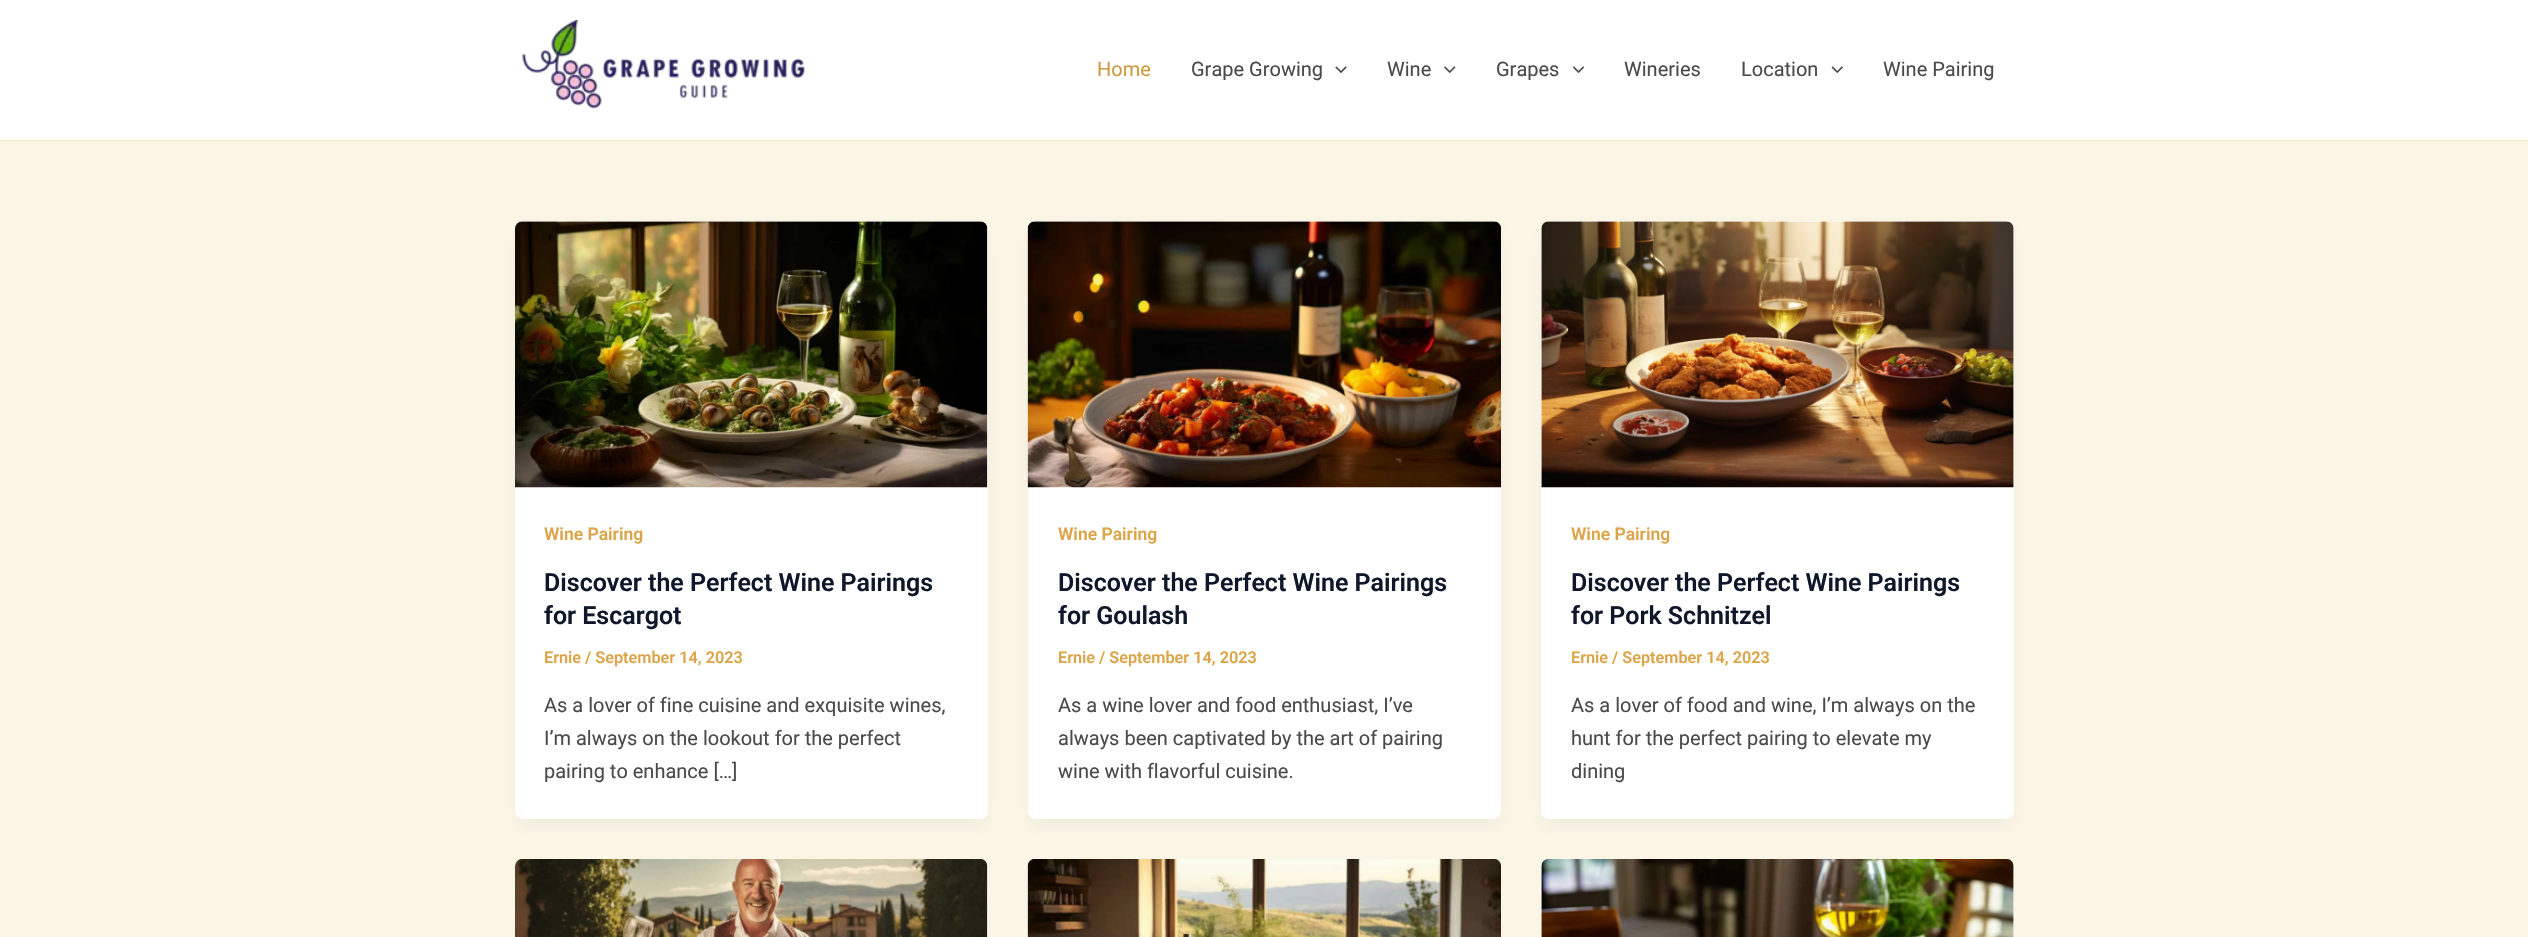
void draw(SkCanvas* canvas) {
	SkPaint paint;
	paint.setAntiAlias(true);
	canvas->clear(0xfffaf5e5);
	paint.setColor(0xffffffff);
	canvas->drawRect(SkRect::MakeXYWH(0, 0, 2528, 140), paint);
	paint.setColor(0xfff0e6c5);
	canvas->drawRect(SkRect::MakeXYWH(0, 140, 2528, 1), paint);
	canvas->drawImageRect(SkImages::DeferredFromEncodedData(SkData::MakeFromFileName("img1.png")), SkRect::MakeXYWH(522, 20, 284, 89), SkSamplingOptions());
	SkFont f1(fontMgr->matchFamilyStyle("Roboto", SkFontStyle::Normal()), 20);
	f1.setSubpixel(true);
	paint.setColor(0xffd09a40);
	canvas->drawString("Home", 1097, 76, f1, paint);
	paint.setColor(0xff4a4a4a);
	canvas->drawString("Grape Growing", 1191, 76, f1, paint);
	canvas->drawImageRect(SkImages::DeferredFromEncodedData(SkData::MakeFromFileName("img2.png")), SkRect::MakeXYWH(1335, 66, 12, 8), SkSamplingOptions());
	canvas->drawString("Wine", 1387, 76, f1, paint);
	canvas->drawImageRect(SkImages::DeferredFromEncodedData(SkData::MakeFromFileName("img3.png")), SkRect::MakeXYWH(1444, 66, 12, 8), SkSamplingOptions());
	canvas->drawString("Grapes", 1496, 76, f1, paint);
	canvas->drawImageRect(SkImages::DeferredFromEncodedData(SkData::MakeFromFileName("img4.png")), SkRect::MakeXYWH(1573, 66, 11, 8), SkSamplingOptions());
	canvas->drawString("Wineries", 1624, 76, f1, paint);
	canvas->drawString("Location", 1741, 76, f1, paint);
	canvas->drawImageRect(SkImages::DeferredFromEncodedData(SkData::MakeFromFileName("img5.png")), SkRect::MakeXYWH(1831, 66, 12, 8), SkSamplingOptions());
	canvas->drawString("Wine Pairing", 1883, 76, f1, paint);
	paint.setColor(0x0d101828);
	paint.setMaskFilter(SkMaskFilter::MakeBlur(kNormal_SkBlurStyle, 9.5));
	canvas->drawRoundRect(SkRect::MakeXYWH(518, 231, 467, 593), 5, 5, paint);
	paint.setMaskFilter(nullptr);
	paint.setColor(0xffffffff);
	canvas->drawRoundRect(SkRect::MakeXYWH(515, 221, 473, 598), 8, 8, paint);
	canvas->drawImageRect(SkImages::DeferredFromEncodedData(SkData::MakeFromFileName("img6.png")), SkRect::MakeXYWH(515, 221, 473, 267), SkSamplingOptions());
	SkFont f2(fontMgr->matchFamilyStyle("Roboto", SkFontStyle(600, SkFontStyle::kNormal_Width, SkFontStyle::kUpright_Slant)), 17.5);
	f2.setSubpixel(true);
	paint.setColor(0xffdca54a);
	canvas->drawString("Wine Pairing", 544, 540, f2, paint);
	SkFont f3(fontMgr->matchFamilyStyle("Roboto", SkFontStyle(600, SkFontStyle::kNormal_Width, SkFontStyle::kUpright_Slant)), 25);
	f3.setSubpixel(true);
	paint.setColor(0xff0f172a);
	canvas->drawString("Discover the Perfect Wine Pairings", 544, 591, f3, paint);
	canvas->drawString("for Escargot", 544, 624, f3, paint);
	SkFont f4(fontMgr->matchFamilyStyle("Roboto", SkFontStyle(600, SkFontStyle::kNormal_Width, SkFontStyle::kUpright_Slant)), 16.25);
	f4.setSubpixel(true);
	paint.setColor(0xffdca54a);
	canvas->drawString("Ernie / September 14, 2023", 544, 663, f4, paint);
	paint.setColor(0xff4a4a4a);
	canvas->drawString("As a lover of fine cuisine and exquisite wines,", 544, 712, f1, paint);
	canvas->drawString("I’m always on the lookout for the perfect", 544, 745, f1, paint);
	canvas->drawString("pairing to enhance […]", 544, 778, f1, paint);
	paint.setColor(0x0d101828);
	paint.setMaskFilter(SkMaskFilter::MakeBlur(kNormal_SkBlurStyle, 9.5));
	canvas->drawRoundRect(SkRect::MakeXYWH(1030, 231, 469, 593), 5, 5, paint);
	paint.setMaskFilter(nullptr);
	paint.setColor(0xffffffff);
	canvas->drawRoundRect(SkRect::MakeXYWH(1028, 221, 473, 598), 8, 8, paint);
	canvas->drawImageRect(SkImages::DeferredFromEncodedData(SkData::MakeFromFileName("img7.png")), SkRect::MakeXYWH(1027, 221, 474, 267), SkSamplingOptions());
	paint.setColor(0xffdca54a);
	canvas->drawString("Wine Pairing", 1058, 540, f2, paint);
	paint.setColor(0xff0f172a);
	canvas->drawString("Discover the Perfect Wine Pairings", 1058, 591, f3, paint);
	canvas->drawString("for Goulash", 1058, 624, f3, paint);
	paint.setColor(0xffdca54a);
	canvas->drawString("Ernie / September 14, 2023", 1058, 663, f4, paint);
	paint.setColor(0xff4a4a4a);
	canvas->drawString("As a wine lover and food enthusiast, I’ve", 1058, 712, f1, paint);
	canvas->drawString("always been captivated by the art of pairing", 1058, 745, f1, paint);
	canvas->drawString("wine with flavorful cuisine.", 1058, 778, f1, paint);
	paint.setColor(0x0d101828);
	paint.setMaskFilter(SkMaskFilter::MakeBlur(kNormal_SkBlurStyle, 9.5));
	canvas->drawRoundRect(SkRect::MakeXYWH(1544, 231, 467, 593), 5, 5, paint);
	paint.setMaskFilter(nullptr);
	paint.setColor(0xffffffff);
	canvas->drawRoundRect(SkRect::MakeXYWH(1541, 221, 473, 598), 8, 8, paint);
	canvas->drawImageRect(SkImages::DeferredFromEncodedData(SkData::MakeFromFileName("img8.png")), SkRect::MakeXYWH(1541, 221, 473, 267), SkSamplingOptions());
	paint.setColor(0xffdca54a);
	canvas->drawString("Wine Pairing", 1571, 540, f2, paint);
	paint.setColor(0xff0f172a);
	canvas->drawString("Discover the Perfect Wine Pairings", 1571, 591, f3, paint);
	canvas->drawString("for Pork Schnitzel", 1571, 624, f3, paint);
	paint.setColor(0xffdca54a);
	canvas->drawString("Ernie / September 14, 2023", 1571, 663, f4, paint);
	paint.setColor(0xff4a4a4a);
	canvas->drawString("As a lover of food and wine, I’m always on the", 1571, 712, f1, paint);
	canvas->drawString("hunt for the perfect pairing to elevate my", 1571, 745, f1, paint);
	canvas->drawString("dining", 1571, 778, f1, paint);
	paint.setColor(0xffffffff);
	canvas->drawRoundRect(SkRect::MakeXYWH(515, 859, 473, 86), 8, 8, paint);
	canvas->drawImageRect(SkImages::DeferredFromEncodedData(SkData::MakeFromFileName("img9.png")), SkRect::MakeXYWH(515, 859, 473, 78), SkSamplingOptions());
	canvas->drawImageRect(SkImages::DeferredFromEncodedData(SkData::MakeFromFileName("img10.png")), SkRect::MakeXYWH(1027, 859, 474, 78), SkSamplingOptions());
	canvas->drawRoundRect(SkRect::MakeXYWH(1541, 859, 473, 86), 8, 8, paint);
	canvas->drawImageRect(SkImages::DeferredFromEncodedData(SkData::MakeFromFileName("img11.png")), SkRect::MakeXYWH(1541, 859, 473, 78), SkSamplingOptions());
}
